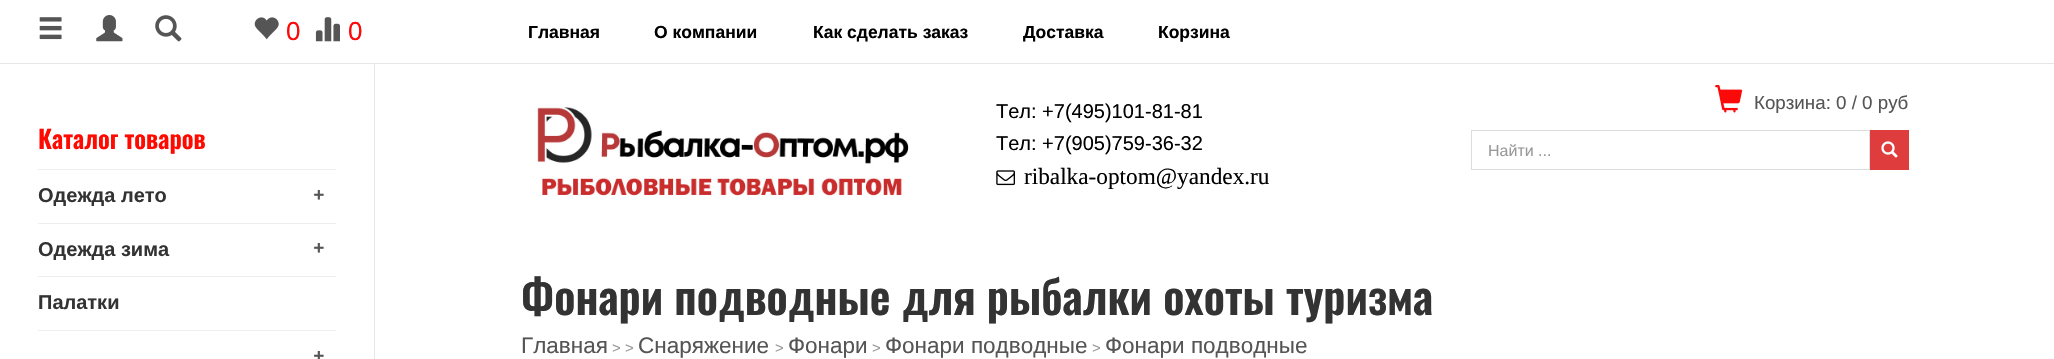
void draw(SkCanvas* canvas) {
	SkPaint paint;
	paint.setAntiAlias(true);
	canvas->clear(0xffffffff);
	paint.setColor(0xffe6e6e6);
	canvas->drawRect(SkRect::MakeXYWH(374, 58, 1, 301), paint);
	paint.setColor(0xffffffff);
	canvas->drawRect(SkRect::MakeXYWH(374, 58, 1, 5), paint);
	paint.setColor(0xffe6e6e6);
	canvas->drawRect(SkRect::MakeXYWH(0, 63, 2054, 1), paint);
	canvas->drawImageRect(SkImages::DeferredFromEncodedData(SkData::MakeFromFileName("img1.png")), SkRect::MakeXYWH(39, 17, 23, 23), SkSamplingOptions());
	canvas->drawImageRect(SkImages::DeferredFromEncodedData(SkData::MakeFromFileName("img2.png")), SkRect::MakeXYWH(96, 15, 27, 27), SkSamplingOptions());
	canvas->drawImageRect(SkImages::DeferredFromEncodedData(SkData::MakeFromFileName("img3.png")), SkRect::MakeXYWH(155, 15, 27, 27), SkSamplingOptions());
	canvas->drawImageRect(SkImages::DeferredFromEncodedData(SkData::MakeFromFileName("img4.png")), SkRect::MakeXYWH(254, 17, 25, 23), SkSamplingOptions());
	SkFont f1(fontMgr->matchFamilyStyle("Liberation Sans", SkFontStyle::Normal()), 26);
	f1.setSubpixel(true);
	paint.setColor(0xfffc0a0a);
	canvas->drawString("0", 286, 40, f1, paint);
	canvas->drawImageRect(SkImages::DeferredFromEncodedData(SkData::MakeFromFileName("img5.png")), SkRect::MakeXYWH(315, 17, 25, 25), SkSamplingOptions());
	canvas->drawString("0", 348, 40, f1, paint);
	SkFont f2(fontMgr->matchFamilyStyle("Liberation Sans", SkFontStyle::Bold()), 17.5);
	f2.setSubpixel(true);
	paint.setColor(0xff000000);
	canvas->drawString("Главная", 528, 38, f2, paint);
	canvas->drawString("О компании", 654, 38, f2, paint);
	canvas->drawString("Как сделать заказ", 813, 38, f2, paint);
	canvas->drawString("Доставка", 1023, 38, f2, paint);
	canvas->drawString("Корзина", 1158, 38, f2, paint);
	SkFont f3(fontMgr->matchFamilyStyle("Oswald", SkFontStyle(600, SkFontStyle::kNormal_Width, SkFontStyle::kUpright_Slant)), 25);
	f3.setSubpixel(true);
	paint.setColor(0xffff0900);
	canvas->drawString("Каталог товаров", 38, 149, f3, paint);
	paint.setColor(0xffeeeeee);
	canvas->drawRect(SkRect::MakeXYWH(38, 169, 298, 1), paint);
	SkFont f4(fontMgr->matchFamilyStyle("Liberation Sans", SkFontStyle::Bold()), 20);
	f4.setSubpixel(true);
	paint.setColor(0xff333333);
	canvas->drawString("Одежда лето", 38, 202, f4, paint);
	SkFont f5(fontMgr->matchFamilyStyle("Liberation Sans", SkFontStyle::BoldItalic()), 18.75);
	f5.setSubpixel(true);
	paint.setColor(0xff555555);
	canvas->drawString("+", 313, 201, f5, paint);
	paint.setColor(0xffeeeeee);
	canvas->drawRect(SkRect::MakeXYWH(38, 223, 298, 1), paint);
	paint.setColor(0xff333333);
	canvas->drawString("Одежда зима", 38, 256, f4, paint);
	paint.setColor(0xff555555);
	canvas->drawString("+", 313, 254, f5, paint);
	paint.setColor(0xffeeeeee);
	canvas->drawRect(SkRect::MakeXYWH(38, 276, 298, 1), paint);
	paint.setColor(0xff333333);
	canvas->drawString("Палатки", 38, 309, f4, paint);
	paint.setColor(0xffeeeeee);
	canvas->drawRect(SkRect::MakeXYWH(38, 330, 298, 1), paint);
	paint.setColor(0xff555555);
	canvas->drawString("+", 313, 362, f5, paint);
	canvas->drawImageRect(SkImages::DeferredFromEncodedData(SkData::MakeFromFileName("img6.png")), SkRect::MakeXYWH(537, 107, 372, 89), SkSamplingOptions());
	SkFont f6(fontMgr->matchFamilyStyle("Liberation Sans", SkFontStyle::Normal()), 20);
	f6.setSubpixel(true);
	paint.setColor(0xff000000);
	canvas->drawString("Tел: +7(495)101-81-81", 996, 118, f6, paint);
	canvas->drawString("Tел: +7(905)759-36-32", 996, 150, f6, paint);
	canvas->drawImageRect(SkImages::DeferredFromEncodedData(SkData::MakeFromFileName("img7.png")), SkRect::MakeXYWH(996, 170, 19, 16), SkSamplingOptions());
	SkFont f7(fontMgr->matchFamilyStyle("Liberation Serif", SkFontStyle::Normal()), 23.25);
	f7.setSubpixel(true);
	canvas->drawString("ribalka-optom@yandex.ru", 1024, 184, f7, paint);
	canvas->drawImageRect(SkImages::DeferredFromEncodedData(SkData::MakeFromFileName("img8.png")), SkRect::MakeXYWH(1715, 85, 28, 28), SkSamplingOptions());
	SkFont f8(fontMgr->matchFamilyStyle("Liberation Sans", SkFontStyle::Normal()), 18.75);
	f8.setSubpixel(true);
	paint.setColor(0xff555555);
	canvas->drawString("Корзина: 0 / 0 руб", 1754, 109, f8, paint);
	paint.setStroke(true);
	paint.setStrokeWidth(1);
	paint.setColor(0xffdddddd);
	canvas->drawRect(SkRect::MakeXYWH(1471.5, 130.5, 398, 39), paint);
	SkFont f9(fontMgr->matchFamilyStyle("Liberation Sans", SkFontStyle::Normal()), 16);
	f9.setSubpixel(true);
	paint.setStroke(false);
	paint.setColor(0xff999999);
	canvas->drawString("Найти ...", 1488, 156, f9, paint);
	paint.setColor(0xffdf3c3d);
	canvas->drawRect(SkRect::MakeXYWH(1870, 130, 39, 40), paint);
	canvas->drawImageRect(SkImages::DeferredFromEncodedData(SkData::MakeFromFileName("img9.png")), SkRect::MakeXYWH(1881, 141, 17, 17), SkSamplingOptions());
	SkFont f10(fontMgr->matchFamilyStyle("Oswald", SkFontStyle(600, SkFontStyle::kNormal_Width, SkFontStyle::kUpright_Slant)), 45);
	f10.setSubpixel(true);
	paint.setColor(0xff333333);
	canvas->drawString("Фонари подводные для рыбалки охоты туризма", 521, 315, f10, paint);
	SkFont f11(fontMgr->matchFamilyStyle("Liberation Sans", SkFontStyle::Normal()), 22.5);
	f11.setSubpixel(true);
	paint.setColor(0xff555555);
	canvas->drawString("Главная", 521, 353, f11, paint);
	SkFont f12(fontMgr->matchFamilyStyle("Liberation Sans", SkFontStyle::Normal()), 15);
	f12.setSubpixel(true);
	paint.setColor(0xff999999);
	canvas->drawString("> >", 612, 353, f12, paint);
	paint.setColor(0xff555555);
	canvas->drawString("Снаряжение", 638, 353, f11, paint);
	paint.setColor(0xff999999);
	canvas->drawString(">", 775, 353, f12, paint);
	paint.setColor(0xff555555);
	canvas->drawString("Фонари", 788, 353, f11, paint);
	paint.setColor(0xff999999);
	canvas->drawString(">", 872, 353, f12, paint);
	paint.setColor(0xff555555);
	canvas->drawString("Фонари подводные", 885, 353, f11, paint);
	paint.setColor(0xff999999);
	canvas->drawString(">", 1092, 353, f12, paint);
	paint.setColor(0xff555555);
	canvas->drawString("Фонари подводные", 1105, 353, f11, paint);
}
